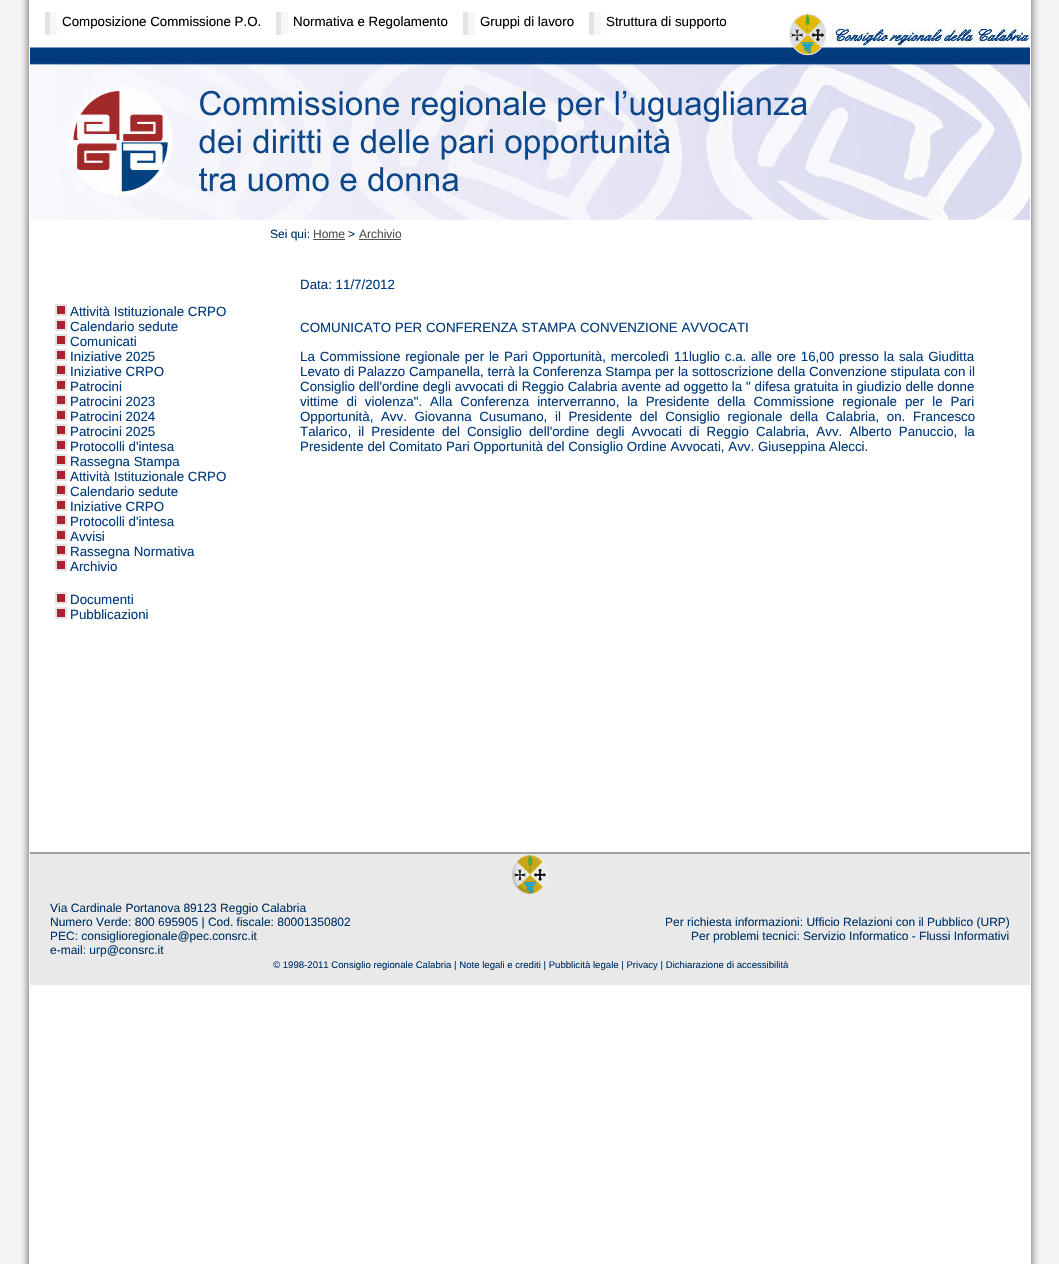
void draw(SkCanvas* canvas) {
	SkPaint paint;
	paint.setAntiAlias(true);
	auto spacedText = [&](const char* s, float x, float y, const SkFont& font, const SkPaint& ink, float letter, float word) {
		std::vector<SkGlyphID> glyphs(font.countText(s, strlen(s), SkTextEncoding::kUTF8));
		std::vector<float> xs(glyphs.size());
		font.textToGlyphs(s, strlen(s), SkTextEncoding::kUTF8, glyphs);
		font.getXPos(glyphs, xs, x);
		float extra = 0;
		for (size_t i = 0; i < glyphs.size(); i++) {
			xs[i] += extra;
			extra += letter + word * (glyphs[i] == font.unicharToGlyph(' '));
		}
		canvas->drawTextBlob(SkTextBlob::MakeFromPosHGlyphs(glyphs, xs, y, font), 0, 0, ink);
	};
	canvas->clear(0xfff3f3f3);
	canvas->drawImageRect(SkImages::DeferredFromEncodedData(SkData::MakeFromFileName("img1.png")), SkRect::MakeXYWH(21, 0, 1018, 1264), SkSamplingOptions());
	canvas->drawImageRect(SkImages::DeferredFromEncodedData(SkData::MakeFromFileName("img2.png")), SkRect::MakeXYWH(30, 12, 1000, 208), SkSamplingOptions());
	canvas->drawImageRect(SkImages::DeferredFromEncodedData(SkData::MakeFromFileName("img3.png")), SkRect::MakeXYWH(45, 12, 12, 23), SkSamplingOptions());
	SkFont f1(fontMgr->matchFamilyStyle("Liberation Sans", SkFontStyle::Normal()), 13.33);
	f1.setSubpixel(true);
	paint.setColor(0xff000000);
	canvas->drawString("Composizione Commissione P.O.", 62, 26, f1, paint);
	canvas->drawImageRect(SkImages::DeferredFromEncodedData(SkData::MakeFromFileName("img3.png")), SkRect::MakeXYWH(276, 12, 12, 23), SkSamplingOptions());
	canvas->drawString("Normativa e Regolamento", 293, 26, f1, paint);
	canvas->drawImageRect(SkImages::DeferredFromEncodedData(SkData::MakeFromFileName("img3.png")), SkRect::MakeXYWH(463, 12, 12, 23), SkSamplingOptions());
	canvas->drawString("Gruppi di lavoro", 480, 26, f1, paint);
	canvas->drawImageRect(SkImages::DeferredFromEncodedData(SkData::MakeFromFileName("img3.png")), SkRect::MakeXYWH(589, 12, 12, 23), SkSamplingOptions());
	canvas->drawString("Struttura di supporto", 606, 26, f1, paint);
	canvas->drawImageRect(SkImages::DeferredFromEncodedData(SkData::MakeFromFileName("img4.png")), SkRect::MakeXYWH(55, 304, 12, 12), SkSamplingOptions());
	paint.setColor(0xff013a7d);
	canvas->drawString("Attività Istituzionale CRPO", 70, 316, f1, paint);
	canvas->drawImageRect(SkImages::DeferredFromEncodedData(SkData::MakeFromFileName("img4.png")), SkRect::MakeXYWH(55, 319, 12, 12), SkSamplingOptions());
	canvas->drawString("Calendario sedute", 70, 331, f1, paint);
	canvas->drawImageRect(SkImages::DeferredFromEncodedData(SkData::MakeFromFileName("img4.png")), SkRect::MakeXYWH(55, 334, 12, 12), SkSamplingOptions());
	canvas->drawString("Comunicati", 70, 346, f1, paint);
	canvas->drawImageRect(SkImages::DeferredFromEncodedData(SkData::MakeFromFileName("img4.png")), SkRect::MakeXYWH(55, 349, 12, 12), SkSamplingOptions());
	canvas->drawString("Iniziative 2025", 70, 361, f1, paint);
	canvas->drawImageRect(SkImages::DeferredFromEncodedData(SkData::MakeFromFileName("img4.png")), SkRect::MakeXYWH(55, 364, 12, 12), SkSamplingOptions());
	canvas->drawString("Iniziative CRPO", 70, 376, f1, paint);
	canvas->drawImageRect(SkImages::DeferredFromEncodedData(SkData::MakeFromFileName("img4.png")), SkRect::MakeXYWH(55, 379, 12, 12), SkSamplingOptions());
	canvas->drawString("Patrocini", 70, 391, f1, paint);
	canvas->drawImageRect(SkImages::DeferredFromEncodedData(SkData::MakeFromFileName("img4.png")), SkRect::MakeXYWH(55, 394, 12, 12), SkSamplingOptions());
	canvas->drawString("Patrocini 2023", 70, 406, f1, paint);
	canvas->drawImageRect(SkImages::DeferredFromEncodedData(SkData::MakeFromFileName("img4.png")), SkRect::MakeXYWH(55, 409, 12, 12), SkSamplingOptions());
	canvas->drawString("Patrocini 2024", 70, 421, f1, paint);
	canvas->drawImageRect(SkImages::DeferredFromEncodedData(SkData::MakeFromFileName("img4.png")), SkRect::MakeXYWH(55, 424, 12, 12), SkSamplingOptions());
	canvas->drawString("Patrocini 2025", 70, 436, f1, paint);
	canvas->drawImageRect(SkImages::DeferredFromEncodedData(SkData::MakeFromFileName("img4.png")), SkRect::MakeXYWH(55, 439, 12, 12), SkSamplingOptions());
	canvas->drawString("Protocolli d'intesa", 70, 451, f1, paint);
	canvas->drawImageRect(SkImages::DeferredFromEncodedData(SkData::MakeFromFileName("img4.png")), SkRect::MakeXYWH(55, 454, 12, 12), SkSamplingOptions());
	canvas->drawString("Rassegna Stampa", 70, 466, f1, paint);
	canvas->drawImageRect(SkImages::DeferredFromEncodedData(SkData::MakeFromFileName("img4.png")), SkRect::MakeXYWH(55, 469, 12, 12), SkSamplingOptions());
	canvas->drawString("Attività Istituzionale CRPO", 70, 481, f1, paint);
	canvas->drawImageRect(SkImages::DeferredFromEncodedData(SkData::MakeFromFileName("img4.png")), SkRect::MakeXYWH(55, 484, 12, 12), SkSamplingOptions());
	canvas->drawString("Calendario sedute", 70, 496, f1, paint);
	canvas->drawImageRect(SkImages::DeferredFromEncodedData(SkData::MakeFromFileName("img4.png")), SkRect::MakeXYWH(55, 499, 12, 12), SkSamplingOptions());
	canvas->drawString("Iniziative CRPO", 70, 511, f1, paint);
	canvas->drawImageRect(SkImages::DeferredFromEncodedData(SkData::MakeFromFileName("img4.png")), SkRect::MakeXYWH(55, 514, 12, 12), SkSamplingOptions());
	canvas->drawString("Protocolli d'intesa", 70, 526, f1, paint);
	canvas->drawImageRect(SkImages::DeferredFromEncodedData(SkData::MakeFromFileName("img4.png")), SkRect::MakeXYWH(55, 529, 12, 12), SkSamplingOptions());
	canvas->drawString("Avvisi", 70, 541, f1, paint);
	canvas->drawImageRect(SkImages::DeferredFromEncodedData(SkData::MakeFromFileName("img4.png")), SkRect::MakeXYWH(55, 544, 12, 12), SkSamplingOptions());
	canvas->drawString("Rassegna Normativa", 70, 556, f1, paint);
	canvas->drawImageRect(SkImages::DeferredFromEncodedData(SkData::MakeFromFileName("img4.png")), SkRect::MakeXYWH(55, 559, 12, 12), SkSamplingOptions());
	canvas->drawString("Archivio", 70, 571, f1, paint);
	canvas->drawImageRect(SkImages::DeferredFromEncodedData(SkData::MakeFromFileName("img4.png")), SkRect::MakeXYWH(55, 592, 12, 12), SkSamplingOptions());
	canvas->drawString("Documenti", 70, 604, f1, paint);
	canvas->drawImageRect(SkImages::DeferredFromEncodedData(SkData::MakeFromFileName("img4.png")), SkRect::MakeXYWH(55, 607, 12, 12), SkSamplingOptions());
	canvas->drawString("Pubblicazioni", 70, 619, f1, paint);
	SkFont f2(fontMgr->matchFamilyStyle("Liberation Sans", SkFontStyle::Normal()), 12);
	f2.setSubpixel(true);
	paint.setColor(0xff003366);
	canvas->drawString("Sei qui:", 270, 238, f2, paint);
	paint.setColor(0xff505050);
	canvas->drawString("Home", 313, 238, f2, paint);
	canvas->drawRect(SkRect::MakeXYWH(313, 239, 32, 1), paint);
	paint.setColor(0xff003366);
	canvas->drawString(">", 348, 238, f2, paint);
	paint.setColor(0xff505050);
	canvas->drawString("Archivio", 359, 238, f2, paint);
	canvas->drawRect(SkRect::MakeXYWH(359, 239, 42, 1), paint);
	paint.setColor(0xff013a7d);
	canvas->drawString("Data: 11/7/2012", 300, 289, f1, paint);
	canvas->drawString("COMUNICATO PER CONFERENZA STAMPA CONVENZIONE AVVOCATI", 300, 332, f1, paint);
	spacedText("La Commissione regionale per le Pari Opportunità, mercoledì 11luglio c.a. alle ore 16,00 presso la sala Giuditta", 300, 361, f1, paint, 0, 1.1);
	canvas->drawString("Levato di Palazzo Campanella, terrà la Conferenza Stampa per la sottoscrizione della Convenzione stipulata con il", 300, 376, f1, paint);
	spacedText("Consiglio dell'ordine degli avvocati di Reggio Calabria avente ad oggetto la \" difesa gratuita in giudizio delle donne", 300, 391, f1, paint, 0, 0.1);
	spacedText("vittime di violenza\". Alla Conferenza interverranno, la Presidente della Commissione regionale per le Pari", 300, 406, f1, paint, 0, 4.25);
	spacedText("Opportunità, Avv. Giovanna Cusumano, il Presidente del Consiglio regionale della Calabria, on. Francesco", 300, 421, f1, paint, 0, 3.9);
	spacedText("Talarico, il Presidente del Consiglio dell'ordine degli Avvocati di Reggio Calabria, Avv. Alberto Panuccio, la", 300, 436, f1, paint, 0, 3.4);
	canvas->drawString("Presidente del Comitato Pari Opportunità del Consiglio Ordine Avvocati, Avv. Giuseppina Alecci.", 300, 451, f1, paint);
	paint.setColor(0xffe9e9e9);
	canvas->drawRect(SkRect::MakeXYWH(30, 854, 1000, 131), paint);
	paint.setColor(0xffa1a1a1);
	canvas->drawRect(SkRect::MakeXYWH(30, 852, 1000, 2), paint);
	canvas->drawImageRect(SkImages::DeferredFromEncodedData(SkData::MakeFromFileName("img5.png")), SkRect::MakeXYWH(512, 854, 36, 40), SkSamplingOptions());
	paint.setColor(0xff003366);
	canvas->drawString("Via Cardinale Portanova 89123 Reggio Calabria", 50, 912, f2, paint);
	canvas->drawString("Numero Verde: 800 695905 | Cod. fiscale: 80001350802", 50, 926, f2, paint);
	canvas->drawString("PEC: consiglioregionale@pec.consrc.it", 50, 940, f2, paint);
	canvas->drawString("e-mail: urp@consrc.it", 50, 954, f2, paint);
	canvas->drawString("Per richiesta informazioni: Ufficio Relazioni con il Pubblico (URP)", 665, 926, f2, paint);
	canvas->drawString("Per problemi tecnici: Servizio Informatico - Flussi Informativi", 691, 940, f2, paint);
	SkFont f3(fontMgr->matchFamilyStyle("Liberation Sans", SkFontStyle::Normal()), 9.6);
	f3.setSubpixel(true);
	canvas->drawString("© 1998-2011 Consiglio regionale Calabria | Note legali e crediti | Pubblicità legale | Privacy | Dichiarazione di accessibilità", 273, 968, f3, paint);
}
